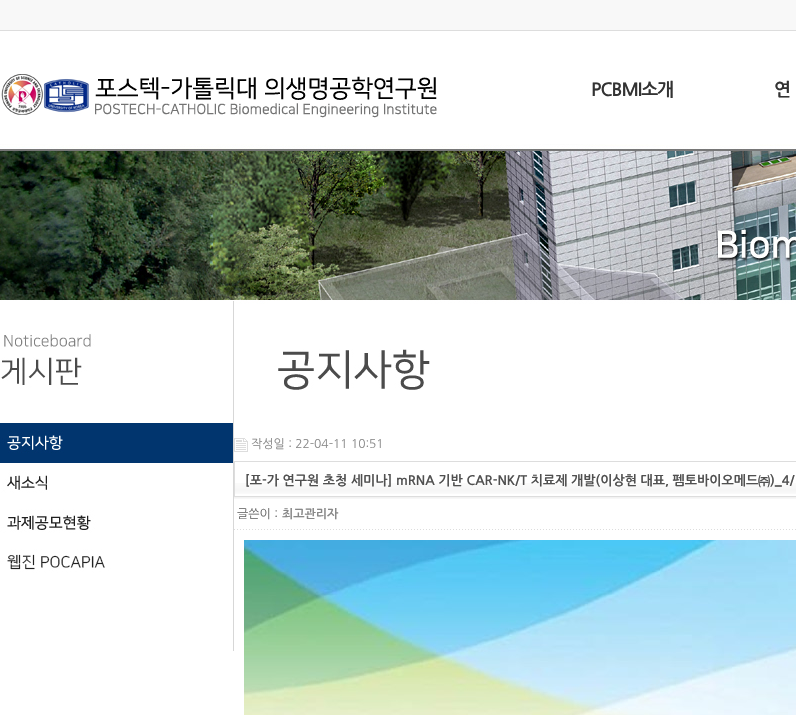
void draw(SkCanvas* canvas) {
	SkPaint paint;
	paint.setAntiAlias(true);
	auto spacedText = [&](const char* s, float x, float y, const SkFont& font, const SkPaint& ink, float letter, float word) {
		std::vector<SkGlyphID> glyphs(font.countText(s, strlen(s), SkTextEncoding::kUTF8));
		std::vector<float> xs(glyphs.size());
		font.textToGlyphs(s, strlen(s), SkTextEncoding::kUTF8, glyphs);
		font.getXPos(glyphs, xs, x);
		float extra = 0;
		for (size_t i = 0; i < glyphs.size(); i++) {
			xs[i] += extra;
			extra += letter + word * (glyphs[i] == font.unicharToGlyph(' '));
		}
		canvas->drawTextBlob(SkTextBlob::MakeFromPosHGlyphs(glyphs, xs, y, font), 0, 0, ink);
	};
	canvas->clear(0xffffffff);
	canvas->drawImageRect(SkImages::DeferredFromEncodedData(SkData::MakeFromFileName("img1.png")), SkRect::MakeXYWH(0, 31, 796, 273), SkSamplingOptions());
	paint.setColor(0xff777777);
	canvas->drawRect(SkRect::MakeXYWH(0, 150, 796, 1), paint);
	paint.setColor(0xfff8f8f8);
	canvas->drawRect(SkRect::MakeXYWH(0, 0, 796, 30), paint);
	paint.setColor(0xffdddddd);
	canvas->drawRect(SkRect::MakeXYWH(0, 30, 796, 1), paint);
	canvas->drawImageRect(SkImages::DeferredFromEncodedData(SkData::MakeFromFileName("img2.png")), SkRect::MakeXYWH(1, 74, 436, 44), SkSamplingOptions());
	SkFont f1(fontMgr->matchFamilyStyle("NanumGothic", SkFontStyle::Bold()), 18);
	f1.setSubpixel(true);
	paint.setColor(0xff333333);
	spacedText("PCBMI소개", 591, 96, f1, paint, -1, 0);
	spacedText("연", 774, 96, f1, paint, -1, 0);
	canvas->drawImageRect(SkImages::DeferredFromEncodedData(SkData::MakeFromFileName("img3.png")), SkRect::MakeXYWH(0, 301, 234, 350), SkSamplingOptions());
	canvas->drawImageRect(SkImages::DeferredFromEncodedData(SkData::MakeFromFileName("img4.png")), SkRect::MakeXYWH(268, 301, 162, 89), SkSamplingOptions());
	canvas->drawImageRect(SkImages::DeferredFromEncodedData(SkData::MakeFromFileName("img5.png")), SkRect::MakeXYWH(234, 438, 14, 14), SkSamplingOptions());
	SkFont f2(fontMgr->matchFamilyStyle("NanumGothic", SkFontStyle::Normal()), 12);
	f2.setSubpixel(true);
	paint.setColor(0xff888888);
	canvas->drawString("작성일 : 22-04-11 10:51", 251, 448, f2, paint);
	canvas->drawImageRect(SkImages::DeferredFromEncodedData(SkData::MakeFromFileName("img6.png")), SkRect::MakeXYWH(235, 483, 561, 11), SkSamplingOptions());
	paint.setStroke(true);
	paint.setStrokeWidth(1);
	paint.setColor(0xffdddddd);
	canvas->drawRect(SkRect::MakeXYWH(234.5, 461.5, 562, 35), paint);
	SkFont f3(fontMgr->matchFamilyStyle("NanumGothic", SkFontStyle::Bold()), 13);
	f3.setSubpixel(true);
	paint.setStroke(false);
	paint.setColor(0xff505050);
	canvas->drawString("[포-가 연구원 초청 세미나] mRNA 기반 CAR-NK/T 치료제 개발(이상현 대표, 펨토바이오메드", 245, 485, f3, paint);
	SkFont f4(fontMgr->matchFamilyStyle("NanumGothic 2", SkFontStyle::Bold()), 13);
	f4.setSubpixel(true);
	canvas->drawString("㈜", 758, 485, f4, paint);
	canvas->drawString(")_4/", 770, 485, f3, paint);
	canvas->drawImageRect(SkImages::DeferredFromEncodedData(SkData::MakeFromFileName("img7.png")), SkRect::MakeXYWH(234, 497, 562, 2), SkSamplingOptions());
	canvas->drawImageRect(SkImages::DeferredFromEncodedData(SkData::MakeFromFileName("img8.png")), SkRect::MakeXYWH(234, 529, 562, 1), SkSamplingOptions());
	paint.setColor(0xff666666);
	canvas->drawString("글쓴이 :", 237, 518, f2, paint);
	SkFont f5(fontMgr->matchFamilyStyle("NanumGothic", SkFontStyle::Bold()), 12);
	f5.setSubpixel(true);
	paint.setColor(0xff888888);
	canvas->drawString("최고관리자", 282, 518, f5, paint);
	canvas->drawImageRect(SkImages::DeferredFromEncodedData(SkData::MakeFromFileName("img9.png")), SkRect::MakeXYWH(244, 540, 552, 175), SkSamplingOptions());
}
